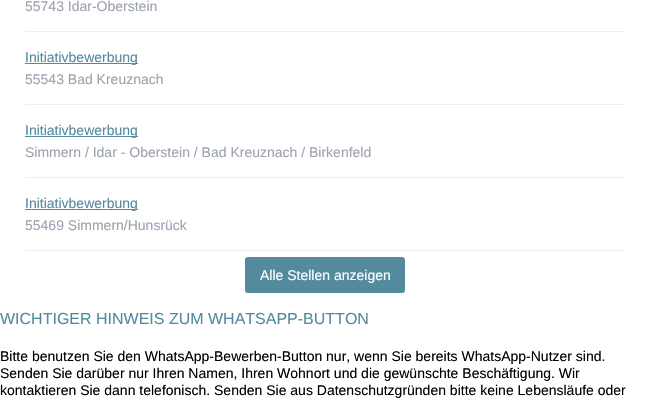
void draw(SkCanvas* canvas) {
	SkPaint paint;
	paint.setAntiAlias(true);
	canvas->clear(0xffffffff);
	paint.setColor(0xffeeeeee);
	canvas->drawRect(SkRect::MakeXYWH(25, 31, 600, 1), paint);
	SkFont f1(fontMgr->matchFamilyStyle("Liberation Sans", SkFontStyle::Normal()), 14);
	f1.setSubpixel(true);
	paint.setColor(0xff9ca3af);
	canvas->drawString("55743 Idar-Oberstein", 25, 11, f1, paint);
	paint.setColor(0xffeeeeee);
	canvas->drawRect(SkRect::MakeXYWH(25, 104, 600, 1), paint);
	paint.setColor(0xff548a9d);
	canvas->drawRect(SkRect::MakeXYWH(25, 63, 113, 1), paint);
	canvas->drawString("Initiativbewerbung", 25, 62, f1, paint);
	paint.setColor(0xff9ca3af);
	canvas->drawString("55543 Bad Kreuznach", 25, 84, f1, paint);
	paint.setColor(0xffeeeeee);
	canvas->drawRect(SkRect::MakeXYWH(25, 177, 600, 1), paint);
	paint.setColor(0xff548a9d);
	canvas->drawRect(SkRect::MakeXYWH(25, 136, 113, 1), paint);
	canvas->drawString("Initiativbewerbung", 25, 135, f1, paint);
	paint.setColor(0xff9ca3af);
	canvas->drawString("Simmern / Idar - Oberstein / Bad Kreuznach / Birkenfeld", 25, 157, f1, paint);
	paint.setColor(0xffeeeeee);
	canvas->drawRect(SkRect::MakeXYWH(25, 250, 600, 1), paint);
	paint.setColor(0xff548a9d);
	canvas->drawRect(SkRect::MakeXYWH(25, 209, 113, 1), paint);
	canvas->drawString("Initiativbewerbung", 25, 208, f1, paint);
	paint.setColor(0xff9ca3af);
	canvas->drawString("55469 Simmern/Hunsrück", 25, 230, f1, paint);
	paint.setColor(0xff548a9d);
	canvas->drawRoundRect(SkRect::MakeXYWH(245, 257, 160, 36), 3, 3, paint);
	paint.setColor(0xffffffff);
	canvas->drawString("Alle Stellen anzeigen", 260, 280, f1, paint);
	SkFont f2(fontMgr->matchFamilyStyle("Liberation Sans", SkFontStyle::Normal()), 16);
	f2.setSubpixel(true);
	paint.setColor(0xff548a9d);
	canvas->drawString("WICHTIGER HINWEIS ZUM WHATSAPP-BUTTON", 0, 324, f2, paint);
	paint.setColor(0xff000000);
	canvas->drawString("Bitte benutzen Sie den WhatsApp-Bewerben-Button nur, wenn Sie bereits WhatsApp-Nutzer sind.", 0, 361, f1, paint);
	canvas->drawString("Senden Sie darüber nur Ihren Namen, Ihren Wohnort und die gewünschte Beschäftigung. Wir", 0, 378, f1, paint);
	canvas->drawString("kontaktieren Sie dann telefonisch. Senden Sie aus Datenschutzgründen bitte keine Lebensläufe oder", 0, 395, f1, paint);
}
